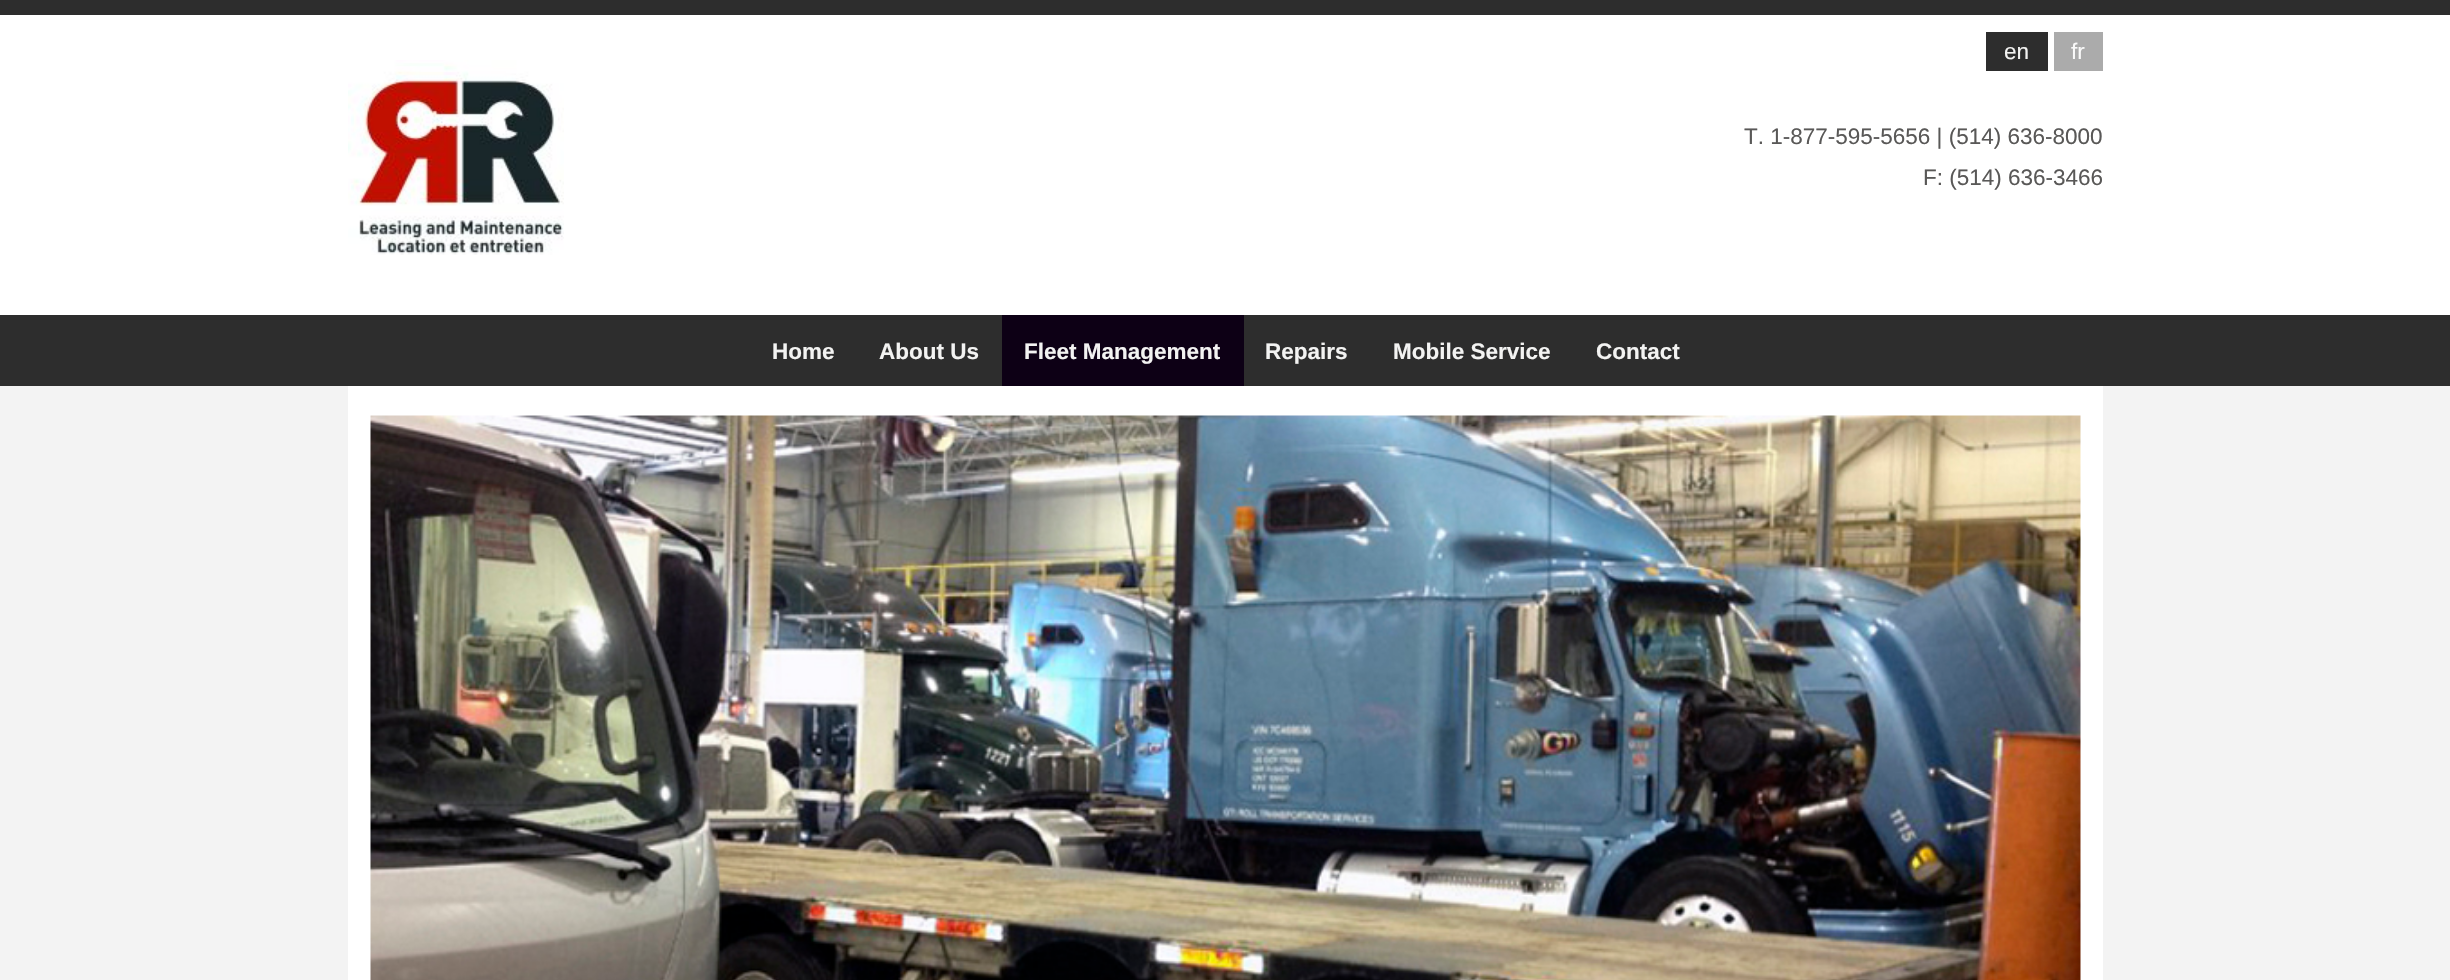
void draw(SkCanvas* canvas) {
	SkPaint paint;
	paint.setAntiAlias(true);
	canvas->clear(0xffffffff);
	paint.setColor(0xff2d2d2d);
	canvas->drawRect(SkRect::MakeXYWH(0, 0, 2450, 15), paint);
	canvas->drawImageRect(SkImages::DeferredFromEncodedData(SkData::MakeFromFileName("img1.png")), SkRect::MakeXYWH(348, 60, 216, 195), SkSamplingOptions());
	canvas->drawRect(SkRect::MakeXYWH(1986, 32, 62, 39), paint);
	SkFont f1(fontMgr->matchFamilyStyle("Liberation Sans", SkFontStyle::Normal()), 22.5);
	f1.setSubpixel(true);
	paint.setColor(0xfff3f3f2);
	canvas->drawString("en", 2004, 59, f1, paint);
	paint.setColor(0xffababab);
	canvas->drawRect(SkRect::MakeXYWH(2054, 32, 49, 39), paint);
	paint.setColor(0xfffafafa);
	canvas->drawString("fr", 2071, 59, f1, paint);
	paint.setColor(0xff595857);
	canvas->drawString("T. 1-877-595-5656 | (514) 636-8000", 1744, 144, f1, paint);
	canvas->drawString("F: (514) 636-3466", 1923, 185, f1, paint);
	paint.setColor(0xff2d2d2d);
	canvas->drawRect(SkRect::MakeXYWH(0, 315, 2450, 71), paint);
	SkFont f2(fontMgr->matchFamilyStyle("Liberation Sans", SkFontStyle::Bold()), 22.5);
	f2.setSubpixel(true);
	paint.setColor(0xfff3f3f2);
	canvas->drawString("Home", 772, 359, f2, paint);
	canvas->drawString("About Us", 879, 359, f2, paint);
	paint.setColor(0xff0d0015);
	canvas->drawRect(SkRect::MakeXYWH(1002, 315, 242, 71), paint);
	paint.setColor(0xfff3f3f2);
	canvas->drawString("Fleet Management", 1024, 359, f2, paint);
	canvas->drawString("Repairs", 1265, 359, f2, paint);
	canvas->drawString("Mobile Service", 1393, 359, f2, paint);
	canvas->drawString("Contact", 1596, 359, f2, paint);
	paint.setColor(0xfff3f3f3);
	canvas->drawRect(SkRect::MakeXYWH(0, 386, 2450, 594), paint);
	paint.setColor(0xffffffff);
	canvas->drawRect(SkRect::MakeXYWH(348, 386, 1755, 594), paint);
	canvas->drawImageRect(SkImages::DeferredFromEncodedData(SkData::MakeFromFileName("img2.png")), SkRect::MakeXYWH(370, 415, 1711, 565), SkSamplingOptions());
}
